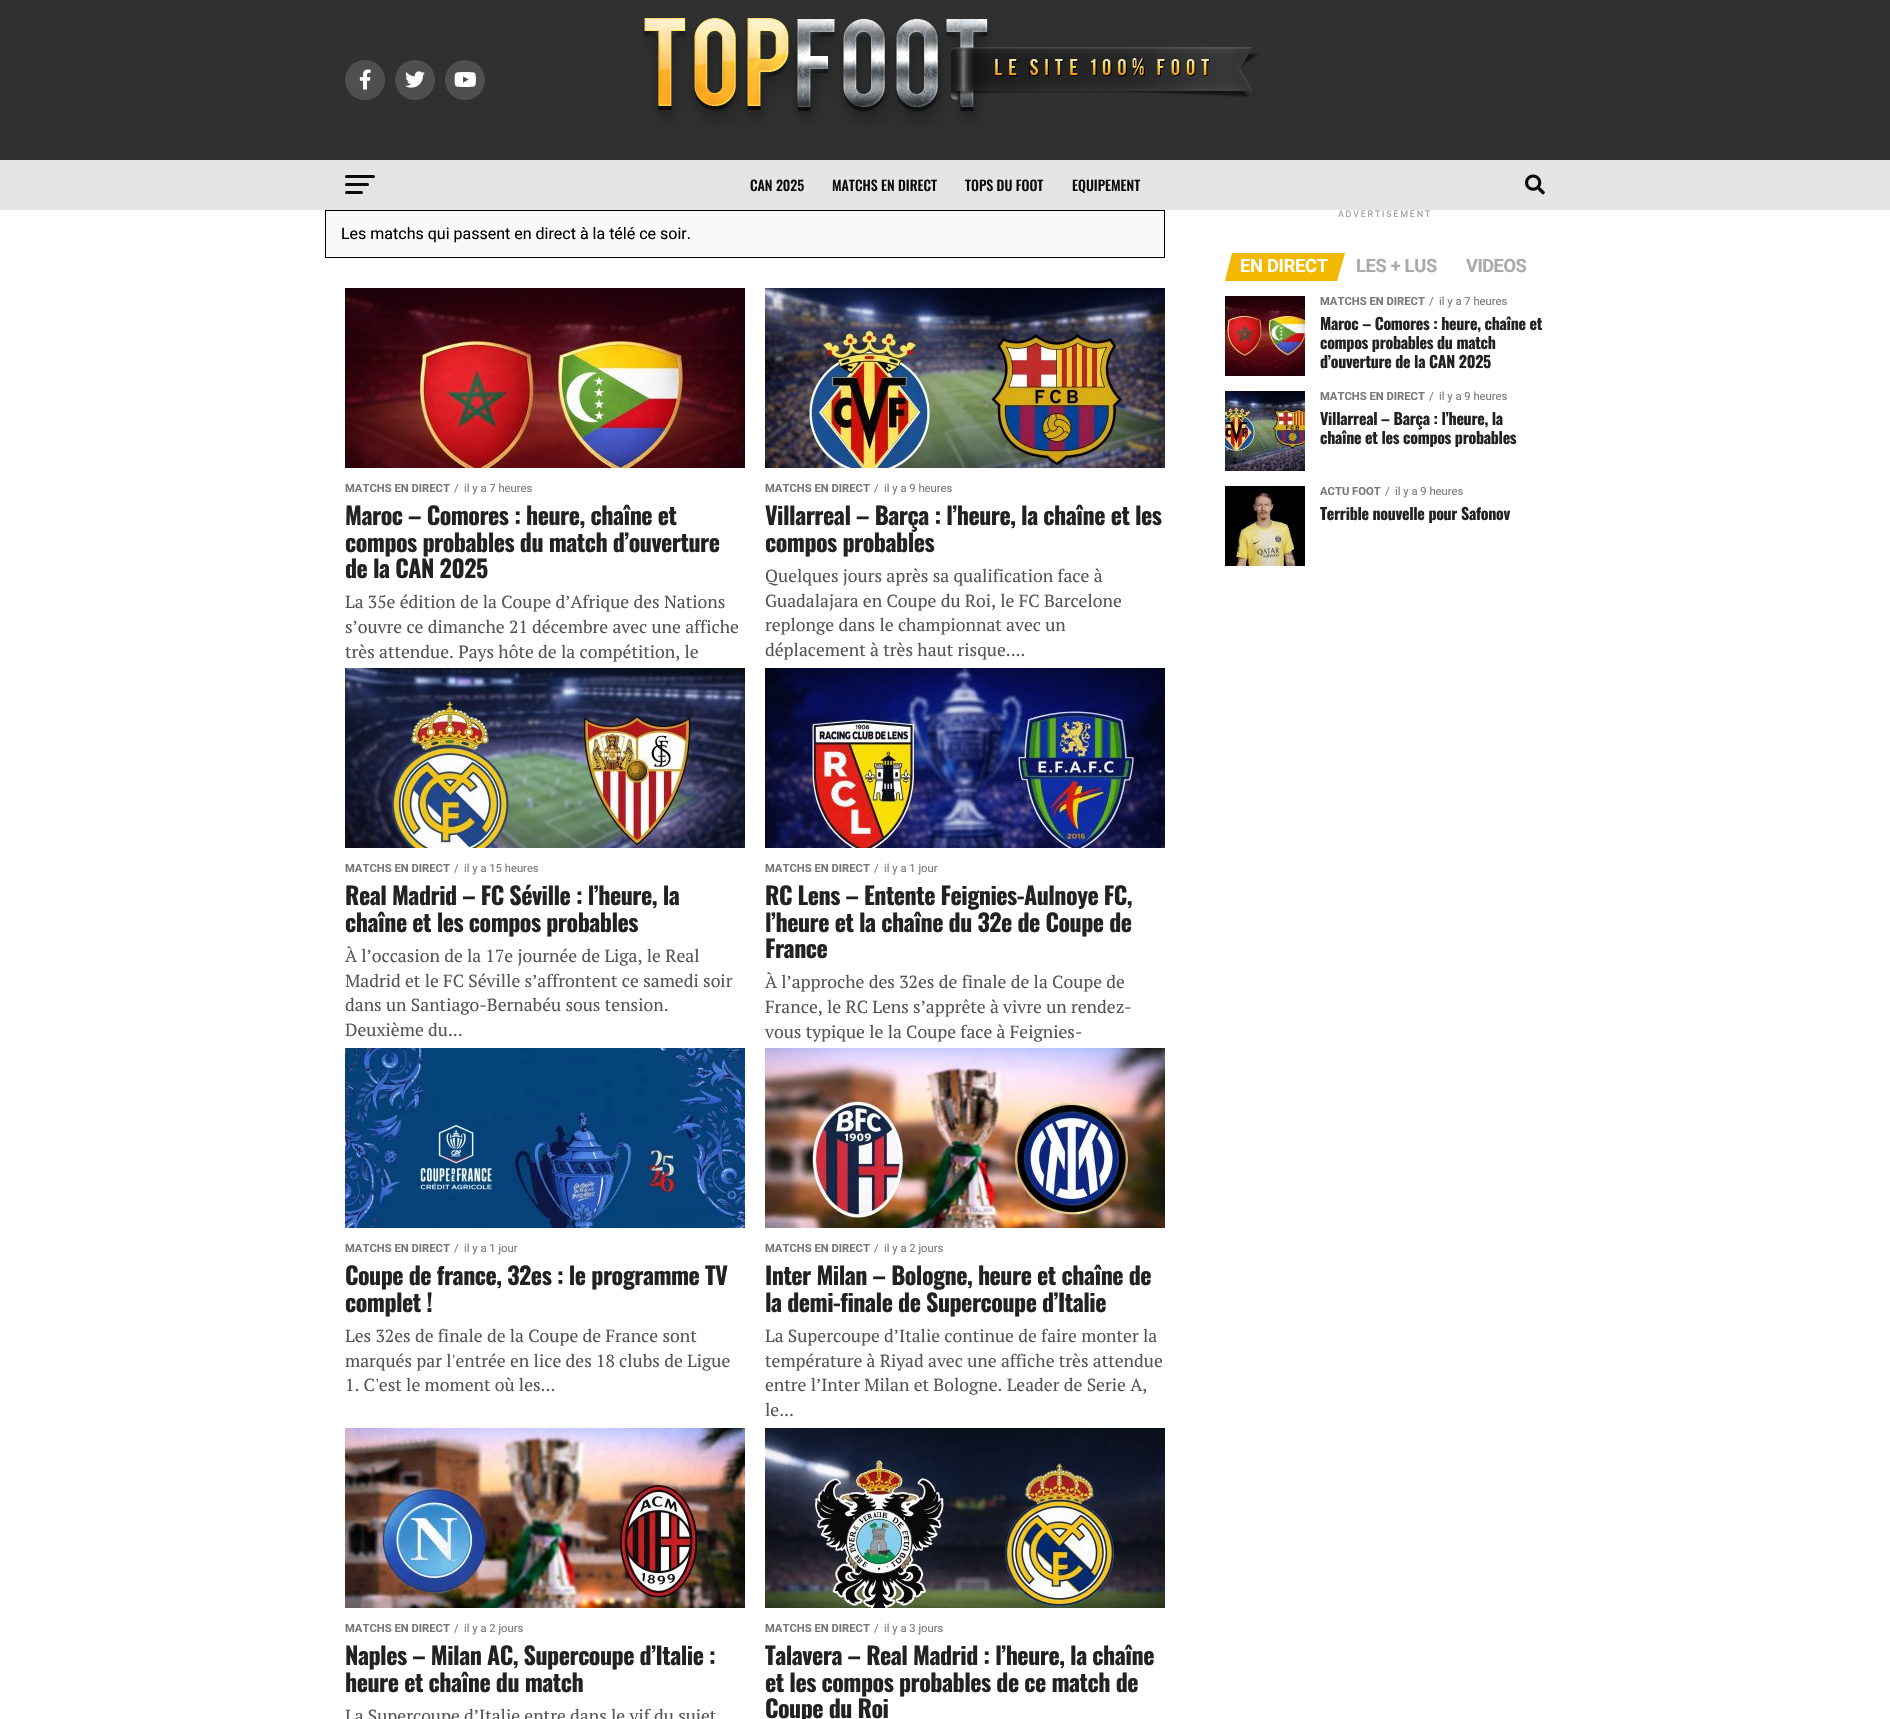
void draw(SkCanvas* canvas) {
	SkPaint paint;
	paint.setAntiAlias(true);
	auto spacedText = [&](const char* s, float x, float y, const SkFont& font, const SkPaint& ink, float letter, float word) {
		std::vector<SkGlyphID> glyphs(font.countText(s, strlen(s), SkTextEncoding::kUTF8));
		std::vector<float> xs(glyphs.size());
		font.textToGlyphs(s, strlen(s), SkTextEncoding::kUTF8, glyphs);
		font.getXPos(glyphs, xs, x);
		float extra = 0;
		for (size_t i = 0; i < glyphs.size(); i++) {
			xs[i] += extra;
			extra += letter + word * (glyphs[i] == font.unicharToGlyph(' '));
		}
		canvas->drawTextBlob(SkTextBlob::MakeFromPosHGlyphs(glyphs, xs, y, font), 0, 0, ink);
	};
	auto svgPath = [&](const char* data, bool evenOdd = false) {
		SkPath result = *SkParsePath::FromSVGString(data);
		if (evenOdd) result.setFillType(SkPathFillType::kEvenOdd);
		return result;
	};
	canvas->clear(0xffffffff);
	paint.setColor(0xff303030);
	canvas->drawRect(SkRect::MakeXYWH(0, 0, 1890, 160), paint);
	paint.setColor(0xff4f4f4f);
	canvas->drawCircle(365, 80, 20, paint);
	canvas->drawImageRect(SkImages::DeferredFromEncodedData(SkData::MakeFromFileName("img1.png")), SkRect::MakeXYWH(359, 69, 12, 21), SkSamplingOptions());
	canvas->drawCircle(415, 80, 20, paint);
	canvas->drawImageRect(SkImages::DeferredFromEncodedData(SkData::MakeFromFileName("img2.png")), SkRect::MakeXYWH(405, 71, 20, 17), SkSamplingOptions());
	canvas->drawCircle(465, 80, 20, paint);
	canvas->drawImageRect(SkImages::DeferredFromEncodedData(SkData::MakeFromFileName("img3.png")), SkRect::MakeXYWH(454, 72, 22, 15), SkSamplingOptions());
	canvas->drawImageRect(SkImages::DeferredFromEncodedData(SkData::MakeFromFileName("img4.png")), SkRect::MakeXYWH(642, 18, 616, 109), SkSamplingOptions());
	paint.setColor(0xffe5e5e5);
	canvas->drawRect(SkRect::MakeXYWH(0, 160, 1890, 50), paint);
	paint.setColor(0xff0a0a0a);
	canvas->drawRoundRect(SkRect::MakeXYWH(345, 175, 30, 3), 1.5, 1.5, paint);
	canvas->drawRoundRect(SkRect::MakeXYWH(345, 183, 24, 3), 1.5, 1.5, paint);
	canvas->drawRoundRect(SkRect::MakeXYWH(345, 191, 18, 3), 1.5, 1.5, paint);
	SkFont f1(fontMgr->matchFamilyStyle("Oswald", SkFontStyle(500, SkFontStyle::kNormal_Width, SkFontStyle::kUpright_Slant)), 14);
	f1.setSubpixel(true);
	canvas->drawString("CAN 2025", 750, 191, f1, paint);
	canvas->drawString("MATCHS EN DIRECT", 832, 191, f1, paint);
	canvas->drawString("TOPS DU FOOT", 965, 191, f1, paint);
	canvas->drawString("EQUIPEMENT", 1072, 191, f1, paint);
	canvas->drawImageRect(SkImages::DeferredFromEncodedData(SkData::MakeFromFileName("img5.png")), SkRect::MakeXYWH(1525, 174, 20, 21), SkSamplingOptions());
	paint.setColor(0xfff9f9f9);
	canvas->drawRect(SkRect::MakeXYWH(325.5, 210.5, 839, 47), paint);
	paint.setStroke(true);
	paint.setStrokeWidth(1);
	paint.setColor(0xff000000);
	canvas->drawRect(SkRect::MakeXYWH(325.5, 210.5, 839, 47), paint);
	SkFont f2(fontMgr->matchFamilyStyle("Roboto", SkFontStyle::Normal()), 16);
	f2.setSubpixel(true);
	paint.setStroke(false);
	canvas->drawString("Les matchs qui passent en direct à la télé ce soir.", 341, 239, f2, paint);
	canvas->drawImageRect(SkImages::DeferredFromEncodedData(SkData::MakeFromFileName("img6.png")), SkRect::MakeXYWH(345, 288, 400, 180), SkSamplingOptions());
	SkFont f3(fontMgr->matchFamilyStyle("Roboto", SkFontStyle::Bold()), 11.25);
	f3.setSubpixel(true);
	paint.setColor(0xff777777);
	canvas->drawString("MATCHS EN DIRECT", 345, 492, f3, paint);
	SkFont f4(fontMgr->matchFamilyStyle("Roboto", SkFontStyle::Normal()), 11.25);
	f4.setSubpixel(true);
	canvas->drawString("/", 454, 492, f4, paint);
	canvas->drawString("il y a 7 heures", 464, 492, f4, paint);
	SkFont f5(fontMgr->matchFamilyStyle("Oswald", SkFontStyle::Bold()), 24);
	f5.setSubpixel(true);
	paint.setColor(0xff222222);
	spacedText("Maroc – Comores : heure, chaîne et", 345, 525, f5, paint, -0.5, 0);
	spacedText("compos probables du match d’ouverture", 345, 552, f5, paint, -0.5, 0);
	spacedText("de la CAN 2025", 345, 578, f5, paint, -0.5, 0);
	SkFont f6(fontMgr->matchFamilyStyle("PT Serif", SkFontStyle::Normal()), 17.6);
	f6.setSubpixel(true);
	paint.setColor(0xff555555);
	canvas->drawString("La 35e édition de la Coupe d’Afrique des Nations", 345, 608, f6, paint);
	canvas->drawString("s’ouvre ce dimanche 21 décembre avec une affiche", 345, 633, f6, paint);
	canvas->drawString("très attendue. Pays hôte de la compétition, le", 345, 658, f6, paint);
	canvas->drawImageRect(SkImages::DeferredFromEncodedData(SkData::MakeFromFileName("img7.png")), SkRect::MakeXYWH(765, 288, 400, 180), SkSamplingOptions());
	paint.setColor(0xff777777);
	canvas->drawString("MATCHS EN DIRECT", 765, 492, f3, paint);
	canvas->drawString("/", 874, 492, f4, paint);
	canvas->drawString("il y a 9 heures", 884, 492, f4, paint);
	paint.setColor(0xff222222);
	spacedText("Villarreal – Barça : l’heure, la chaîne et les", 765, 525, f5, paint, -0.5, 0);
	spacedText("compos probables", 765, 552, f5, paint, -0.5, 0);
	paint.setColor(0xff555555);
	canvas->drawString("Quelques jours après sa qualification face à", 765, 582, f6, paint);
	canvas->drawString("Guadalajara en Coupe du Roi, le FC Barcelone", 765, 607, f6, paint);
	canvas->drawString("replonge dans le championnat avec un", 765, 631, f6, paint);
	canvas->drawString("déplacement à très haut risque....", 765, 656, f6, paint);
	canvas->drawImageRect(SkImages::DeferredFromEncodedData(SkData::MakeFromFileName("img8.png")), SkRect::MakeXYWH(345, 668, 400, 180), SkSamplingOptions());
	paint.setColor(0xff777777);
	canvas->drawString("MATCHS EN DIRECT", 345, 872, f3, paint);
	canvas->drawString("/", 454, 872, f4, paint);
	canvas->drawString("il y a 15 heures", 464, 872, f4, paint);
	paint.setColor(0xff222222);
	spacedText("Real Madrid – FC Séville : l’heure, la", 345, 905, f5, paint, -0.5, 0);
	spacedText("chaîne et les compos probables", 345, 932, f5, paint, -0.5, 0);
	paint.setColor(0xff555555);
	canvas->drawString("À l’occasion de la 17e journée de Liga, le Real", 345, 962, f6, paint);
	canvas->drawString("Madrid et le FC Séville s’affrontent ce samedi soir", 345, 987, f6, paint);
	canvas->drawString("dans un Santiago-Bernabéu sous tension.", 345, 1011, f6, paint);
	canvas->drawString("Deuxième du...", 345, 1036, f6, paint);
	canvas->drawImageRect(SkImages::DeferredFromEncodedData(SkData::MakeFromFileName("img9.png")), SkRect::MakeXYWH(765, 668, 400, 180), SkSamplingOptions());
	paint.setColor(0xff777777);
	canvas->drawString("MATCHS EN DIRECT", 765, 872, f3, paint);
	canvas->drawString("/", 874, 872, f4, paint);
	canvas->drawString("il y a 1 jour", 884, 872, f4, paint);
	paint.setColor(0xff222222);
	spacedText("RC Lens – Entente Feignies-Aulnoye FC,", 765, 905, f5, paint, -0.5, 0);
	spacedText("l’heure et la chaîne du 32e de Coupe de", 765, 932, f5, paint, -0.5, 0);
	spacedText("France", 765, 958, f5, paint, -0.5, 0);
	paint.setColor(0xff555555);
	canvas->drawString("À l’approche des 32es de finale de la Coupe de", 765, 988, f6, paint);
	canvas->drawString("France, le RC Lens s’apprête à vivre un rendez-", 765, 1013, f6, paint);
	canvas->drawString("vous typique le la Coupe face à Feignies-", 765, 1038, f6, paint);
	canvas->drawImageRect(SkImages::DeferredFromEncodedData(SkData::MakeFromFileName("img10.png")), SkRect::MakeXYWH(345, 1048, 400, 180), SkSamplingOptions());
	paint.setColor(0xff777777);
	canvas->drawString("MATCHS EN DIRECT", 345, 1252, f3, paint);
	canvas->drawString("/", 454, 1252, f4, paint);
	canvas->drawString("il y a 1 jour", 464, 1252, f4, paint);
	paint.setColor(0xff222222);
	spacedText("Coupe de france, 32es : le programme TV", 345, 1285, f5, paint, -0.5, 0);
	spacedText("complet !", 345, 1312, f5, paint, -0.5, 0);
	paint.setColor(0xff555555);
	canvas->drawString("Les 32es de finale de la Coupe de France sont", 345, 1342, f6, paint);
	canvas->drawString("marqués par l'entrée en lice des 18 clubs de Ligue", 345, 1367, f6, paint);
	canvas->drawString("1. C'est le moment où les...", 345, 1391, f6, paint);
	canvas->drawImageRect(SkImages::DeferredFromEncodedData(SkData::MakeFromFileName("img11.png")), SkRect::MakeXYWH(765, 1048, 400, 180), SkSamplingOptions());
	paint.setColor(0xff777777);
	canvas->drawString("MATCHS EN DIRECT", 765, 1252, f3, paint);
	canvas->drawString("/", 874, 1252, f4, paint);
	canvas->drawString("il y a 2 jours", 884, 1252, f4, paint);
	paint.setColor(0xff222222);
	spacedText("Inter Milan – Bologne, heure et chaîne de", 765, 1285, f5, paint, -0.5, 0);
	spacedText("la demi-finale de Supercoupe d’Italie", 765, 1312, f5, paint, -0.5, 0);
	paint.setColor(0xff555555);
	canvas->drawString("La Supercoupe d’Italie continue de faire monter la", 765, 1342, f6, paint);
	canvas->drawString("température à Riyad avec une affiche très attendue", 765, 1367, f6, paint);
	canvas->drawString("entre l’Inter Milan et Bologne. Leader de Serie A,", 765, 1391, f6, paint);
	canvas->drawString("le...", 765, 1416, f6, paint);
	canvas->drawImageRect(SkImages::DeferredFromEncodedData(SkData::MakeFromFileName("img12.png")), SkRect::MakeXYWH(345, 1428, 400, 180), SkSamplingOptions());
	paint.setColor(0xff777777);
	canvas->drawString("MATCHS EN DIRECT", 345, 1632, f3, paint);
	canvas->drawString("/", 454, 1632, f4, paint);
	canvas->drawString("il y a 2 jours", 464, 1632, f4, paint);
	paint.setColor(0xff222222);
	spacedText("Naples – Milan AC, Supercoupe d’Italie :", 345, 1665, f5, paint, -0.5, 0);
	spacedText("heure et chaîne du match", 345, 1692, f5, paint, -0.5, 0);
	paint.setColor(0xff555555);
	canvas->drawString("La Supercoupe d’Italie entre dans le vif du sujet", 345, 1722, f6, paint);
	canvas->drawImageRect(SkImages::DeferredFromEncodedData(SkData::MakeFromFileName("img13.png")), SkRect::MakeXYWH(765, 1428, 400, 180), SkSamplingOptions());
	paint.setColor(0xff777777);
	canvas->drawString("MATCHS EN DIRECT", 765, 1632, f3, paint);
	canvas->drawString("/", 874, 1632, f4, paint);
	canvas->drawString("il y a 3 jours", 884, 1632, f4, paint);
	paint.setColor(0xff222222);
	spacedText("Talavera – Real Madrid : l’heure, la chaîne", 765, 1665, f5, paint, -0.5, 0);
	spacedText("et les compos probables de ce match de", 765, 1692, f5, paint, -0.5, 0);
	spacedText("Coupe du Roi", 765, 1718, f5, paint, -0.5, 0);
	SkFont f7(fontMgr->matchFamilyStyle("Roboto", SkFontStyle::Normal()), 9);
	f7.setSubpixel(true);
	paint.setColor(0xff999999);
	spacedText("ADVERTISEMENT", 1338, 217, f7, paint, 1.75, 0);
	paint.setColor(0xfff2b900);
	canvas->drawPath(svgPath("M1232 253H1345L1337 281H1225Z"), paint);
	SkFont f8(fontMgr->matchFamilyStyle("Roboto", SkFontStyle::Bold()), 18.25);
	f8.setSubpixel(true);
	paint.setColor(0xffffffff);
	spacedText("EN DIRECT", 1240, 272, f8, paint, -0.25, 0);
	paint.setColor(0xffaaaaaa);
	spacedText("LES + LUS", 1356, 272, f8, paint, -0.3, 0);
	spacedText("VIDEOS", 1466, 272, f8, paint, -0.5, 0);
	canvas->drawImageRect(SkImages::DeferredFromEncodedData(SkData::MakeFromFileName("img14.png")), SkRect::MakeXYWH(1225, 296, 80, 80), SkSamplingOptions());
	paint.setColor(0xff777777);
	canvas->drawString("MATCHS EN DIRECT", 1320, 305, f3, paint);
	canvas->drawString("/", 1429, 305, f4, paint);
	canvas->drawString("il y a 7 heures", 1439, 305, f4, paint);
	SkFont f9(fontMgr->matchFamilyStyle("Oswald", SkFontStyle::Bold()), 16);
	f9.setSubpixel(true);
	paint.setColor(0xff222222);
	spacedText("Maroc – Comores : heure, chaîne et", 1320, 330, f9, paint, -0.3, 0);
	spacedText("compos probables du match", 1320, 349, f9, paint, -0.3, 0);
	spacedText("d’ouverture de la CAN 2025", 1320, 368, f9, paint, -0.3, 0);
	canvas->drawImageRect(SkImages::DeferredFromEncodedData(SkData::MakeFromFileName("img15.png")), SkRect::MakeXYWH(1225, 391, 80, 80), SkSamplingOptions());
	paint.setColor(0xff777777);
	canvas->drawString("MATCHS EN DIRECT", 1320, 400, f3, paint);
	canvas->drawString("/", 1429, 400, f4, paint);
	canvas->drawString("il y a 9 heures", 1439, 400, f4, paint);
	paint.setColor(0xff222222);
	spacedText("Villarreal – Barça : l’heure, la", 1320, 425, f9, paint, -0.3, 0);
	spacedText("chaîne et les compos probables", 1320, 444, f9, paint, -0.3, 0);
	canvas->drawImageRect(SkImages::DeferredFromEncodedData(SkData::MakeFromFileName("img16.png")), SkRect::MakeXYWH(1225, 486, 80, 80), SkSamplingOptions());
	paint.setColor(0xff777777);
	canvas->drawString("ACTU FOOT", 1320, 495, f3, paint);
	canvas->drawString("/", 1385, 495, f4, paint);
	canvas->drawString("il y a 9 heures", 1395, 495, f4, paint);
	paint.setColor(0xff222222);
	spacedText("Terrible nouvelle pour Safonov", 1320, 520, f9, paint, -0.3, 0);
}
